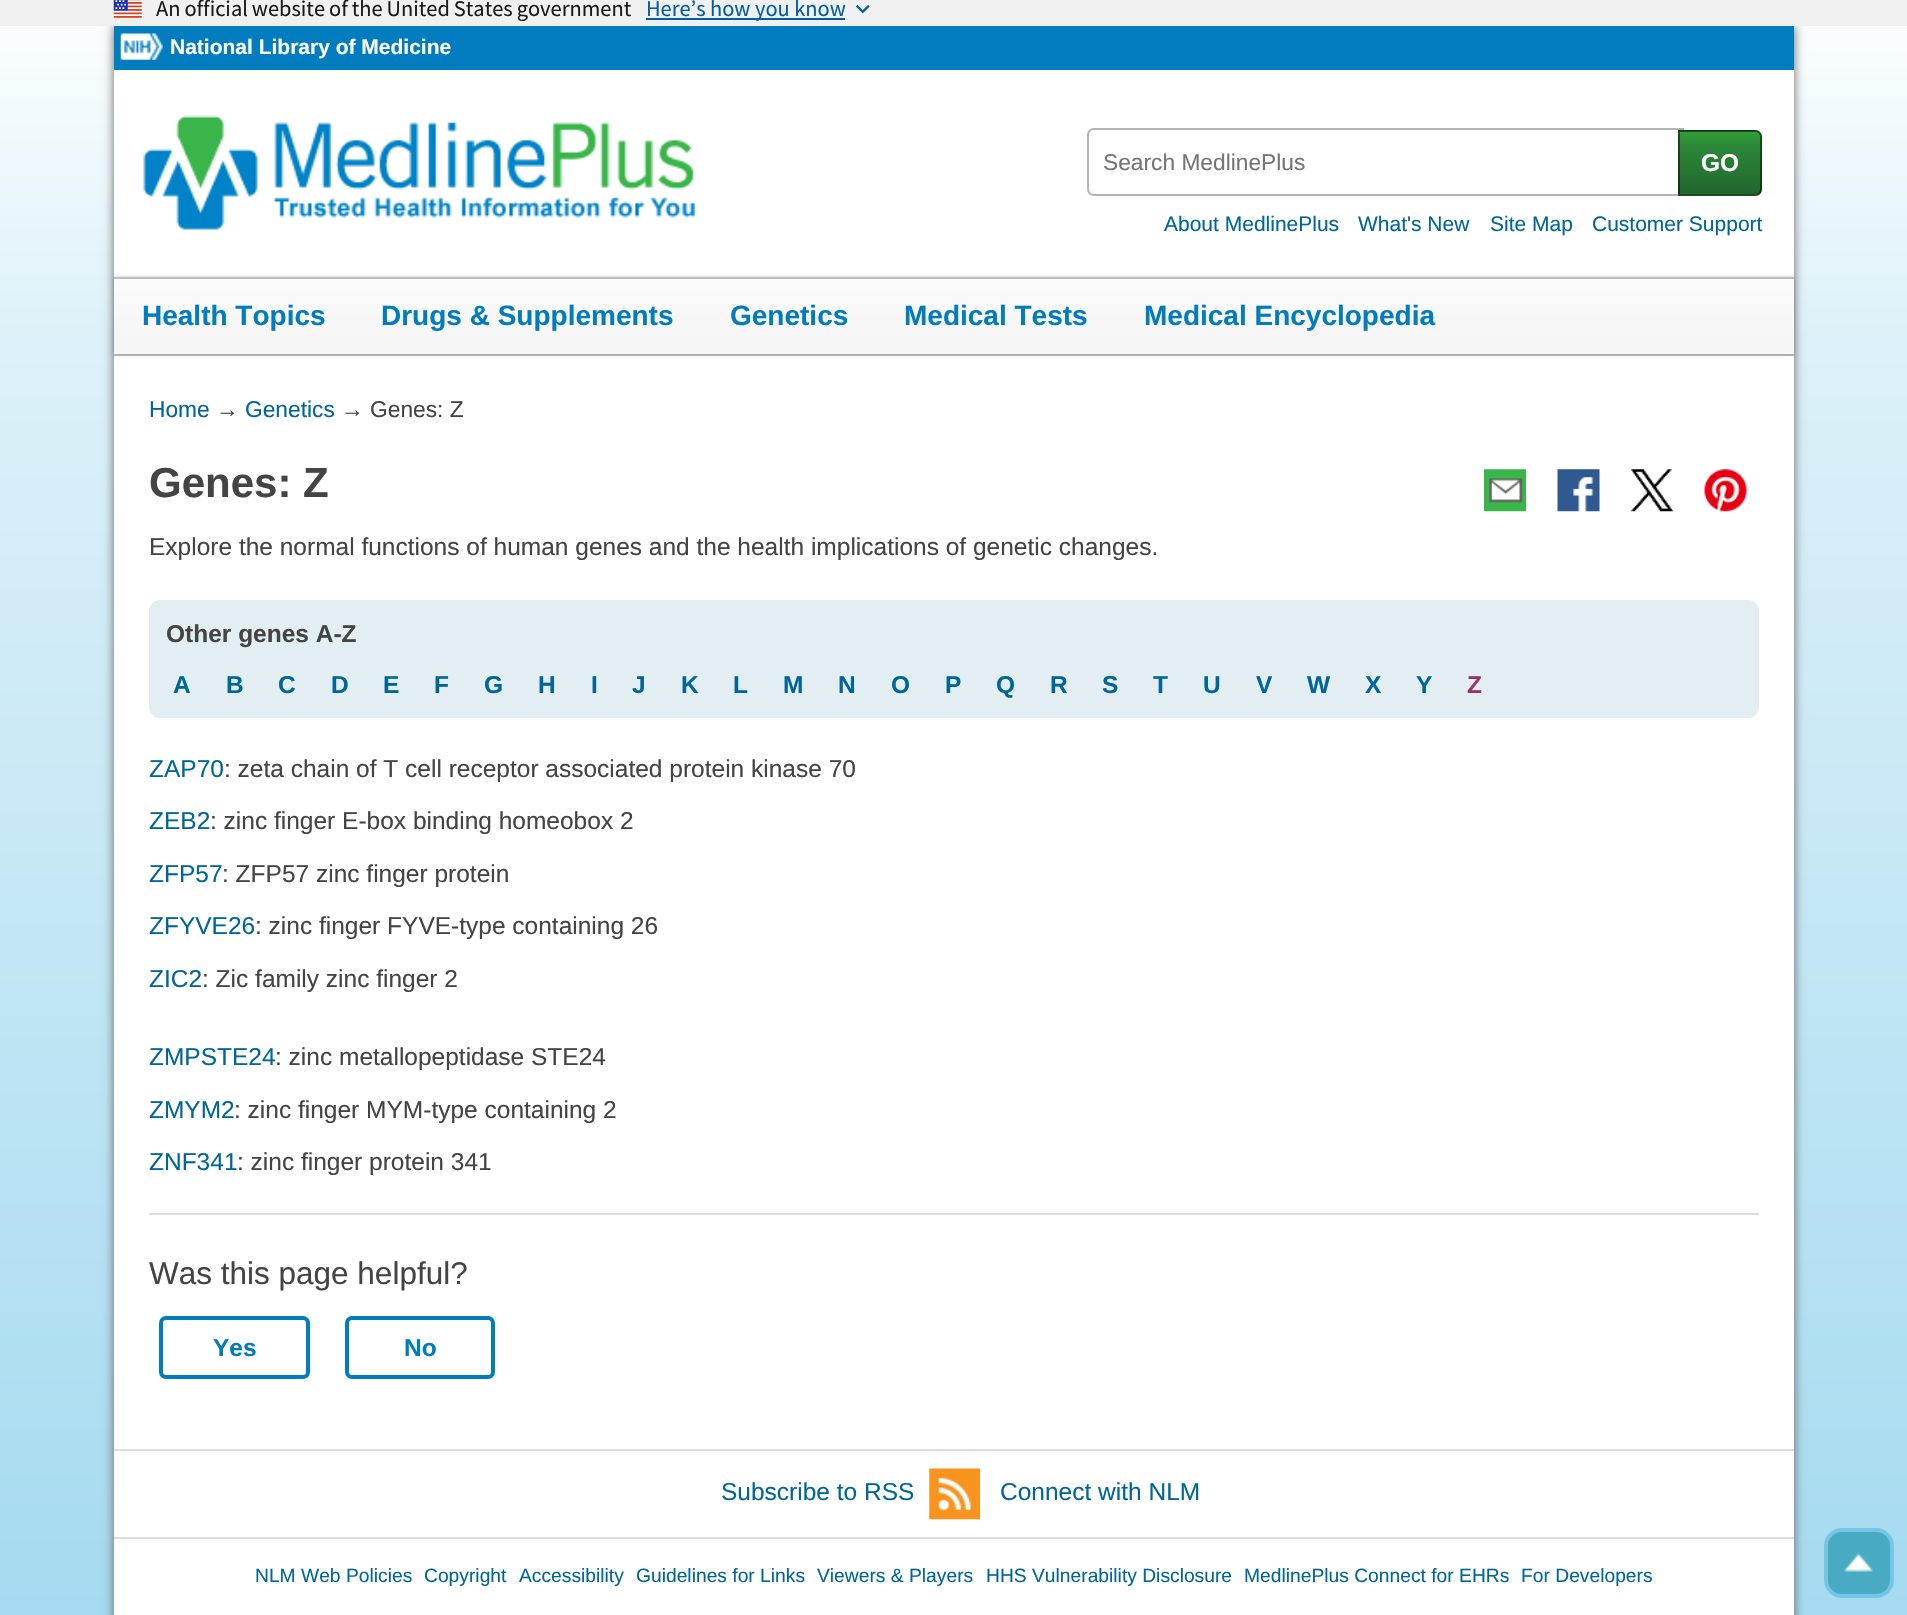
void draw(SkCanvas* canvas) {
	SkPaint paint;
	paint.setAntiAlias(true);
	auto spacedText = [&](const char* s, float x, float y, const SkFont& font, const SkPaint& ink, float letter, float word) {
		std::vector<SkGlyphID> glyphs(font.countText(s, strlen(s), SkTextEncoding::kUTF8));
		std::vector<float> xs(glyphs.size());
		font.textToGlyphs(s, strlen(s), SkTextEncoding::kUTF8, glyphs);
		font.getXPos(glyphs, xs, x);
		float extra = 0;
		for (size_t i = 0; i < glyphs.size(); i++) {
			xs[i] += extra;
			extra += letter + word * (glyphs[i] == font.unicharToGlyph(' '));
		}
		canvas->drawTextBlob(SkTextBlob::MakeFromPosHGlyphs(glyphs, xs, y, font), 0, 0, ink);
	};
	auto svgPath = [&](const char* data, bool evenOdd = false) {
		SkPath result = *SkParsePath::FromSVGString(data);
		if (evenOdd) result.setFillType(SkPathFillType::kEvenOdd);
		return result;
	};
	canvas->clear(0xffffffff);
	{
		const SkColor colors[] = {0xfffeffff, 0xffddf1f9, 0xffa0d8ef};
		const float stops[] = {0, 0.2, 1};
		const SkPoint ends[] = {{954, -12}, {954, 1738}};
		paint.setShader(SkGradientShader::MakeLinear(ends, colors, stops, 3, SkTileMode::kClamp));
		paint.setAlpha(255);
	}
	canvas->drawRect(SkRect::MakeXYWH(0, 26, 1907, 1589), paint);
	paint.setShader(nullptr);
	paint.setColor(0xff666666);
	paint.setMaskFilter(SkMaskFilter::MakeBlur(kNormal_SkBlurStyle, 5));
	canvas->drawRect(SkRect::MakeXYWH(114, 26, 1680, 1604), paint);
	paint.setMaskFilter(nullptr);
	paint.setColor(0xfff0f0f0);
	canvas->drawRect(SkRect::MakeXYWH(0, 0, 1907, 26), paint);
	canvas->drawImageRect(SkImages::DeferredFromEncodedData(SkData::MakeFromFileName("img1.png")), SkRect::MakeXYWH(113, 0, 29, 18), SkSamplingOptions());
	SkFont f1(fontMgr->matchFamilyStyle("Source Sans Pro", SkFontStyle::Normal()), 22.4);
	f1.setSubpixel(true);
	paint.setColor(0xff1b1b1b);
	spacedText("An official website of the United States government", 156, 16, f1, paint, 0, -0.5);
	paint.setColor(0xff005ea2);
	canvas->drawRect(SkRect::MakeXYWH(646, 18, 199, 2), paint);
	canvas->drawString("Here’s how you know", 646, 16, f1, paint);
	canvas->drawImageRect(SkImages::DeferredFromEncodedData(SkData::MakeFromFileName("img2.png")), SkRect::MakeXYWH(855, 4, 15, 10), SkSamplingOptions());
	paint.setColor(0xffffffff);
	canvas->drawRect(SkRect::MakeXYWH(114, 70, 1680, 1545), paint);
	paint.setColor(0xff007cbf);
	canvas->drawRect(SkRect::MakeXYWH(114, 26, 1680, 44), paint);
	canvas->drawImageRect(SkImages::DeferredFromEncodedData(SkData::MakeFromFileName("img3.png")), SkRect::MakeXYWH(120, 33, 43, 27), SkSamplingOptions());
	SkFont f2(fontMgr->matchFamilyStyle("Liberation Sans", SkFontStyle::Bold()), 21);
	f2.setSubpixel(true);
	paint.setColor(0xffffffff);
	canvas->drawString("National Library of Medicine", 170, 54, f2, paint);
	canvas->drawImageRect(SkImages::DeferredFromEncodedData(SkData::MakeFromFileName("img4.png")), SkRect::MakeXYWH(143, 115, 553, 115), SkSamplingOptions());
	paint.setColor(0xffbdbdbd);
	canvas->drawRect(SkRect::MakeXYWH(114, 354, 1680, 2), paint);
	paint.setColor(0x33000000);
	paint.setMaskFilter(SkMaskFilter::MakeBlur(kNormal_SkBlurStyle, 2));
	canvas->drawRect(SkRect::MakeXYWH(114, 277, 1680, 77), paint);
	paint.setMaskFilter(nullptr);
	{
		const SkColor colors[] = {0xfffafafa, 0xfff6f6f6};
		const float stops[] = {0.1, 0.75};
		const SkPoint ends[] = {{954, 278}, {954, 354}};
		paint.setShader(SkGradientShader::MakeLinear(ends, colors, stops, 2, SkTileMode::kClamp));
		paint.setAlpha(255);
	}
	canvas->drawRect(SkRect::MakeXYWH(114, 279, 1680, 75), paint);
	paint.setShader(nullptr);
	paint.setColor(0xffbdbdbd);
	canvas->drawRect(SkRect::MakeXYWH(114, 277, 1680, 2), paint);
	paint.setStroke(true);
	paint.setStrokeWidth(2);
	paint.setColor(0xffb4b4b4);
	canvas->drawPath(svgPath("M1094 129H1683V195H1094C1090.5 195 1088 192.5 1088 189V135C1088 131.5 1090.5 129 1094 129Z"), paint);
	SkFont f3(fontMgr->matchFamilyStyle("Liberation Sans", SkFontStyle::Normal()), 22.75);
	f3.setSubpixel(true);
	paint.setStroke(false);
	paint.setColor(0xff757575);
	canvas->drawString("Search MedlinePlus", 1103, 170, f3, paint);
	canvas->save();
	canvas->clipPath(svgPath("M1678 130H1755C1759 130 1762 133 1762 137V189C1762 193 1759 196 1755 196H1678Z"), true);
	{
		const SkColor colors[] = {0xff329e39, 0xff2b8737, 0xff21662e};
		const float stops[] = {0, 0.25, 1};
		const SkPoint ends[] = {{1720, 68}, {1720, 131}};
		paint.setShader(SkGradientShader::MakeLinear(ends, colors, stops, 3, SkTileMode::kClamp));
		paint.setAlpha(255);
	}
	canvas->drawRect(SkRect::MakeXYWH(1678, 130, 84, 1), paint);
	{
		const SkColor colors[] = {0xff329e39, 0xff2b8737, 0xff21662e};
		const float stops[] = {0, 0.25, 1};
		const SkPoint ends[] = {{1720, 131}, {1720, 194}};
		paint.setShader(SkGradientShader::MakeLinear(ends, colors, stops, 3, SkTileMode::kClamp));
		paint.setAlpha(255);
	}
	canvas->drawRect(SkRect::MakeXYWH(1678, 131, 84, 63), paint);
	{
		const SkColor colors[] = {0xff329e39, 0xff2b8737, 0xff21662e};
		const float stops[] = {0, 0.25, 1};
		const SkPoint ends[] = {{1720, 194}, {1720, 257}};
		paint.setShader(SkGradientShader::MakeLinear(ends, colors, stops, 3, SkTileMode::kClamp));
		paint.setAlpha(255);
	}
	canvas->drawRect(SkRect::MakeXYWH(1678, 194, 84, 2), paint);
	canvas->restore();
	paint.setStroke(true);
	paint.setShader(nullptr);
	paint.setColor(0x80000000);
	canvas->drawPath(svgPath("M1679 131H1755C1758.5 131 1761 133.5 1761 137V189C1761 192.5 1758.5 195 1755 195H1679Z"), paint);
	SkFont f4(fontMgr->matchFamilyStyle("Liberation Sans", SkFontStyle::Bold()), 24.5);
	f4.setSubpixel(true);
	paint.setStroke(false);
	paint.setColor(0xffffffff);
	canvas->drawString("GO", 1701, 171, f4, paint);
	SkFont f5(fontMgr->matchFamilyStyle("Liberation Sans", SkFontStyle::Normal()), 21);
	f5.setSubpixel(true);
	paint.setColor(0xff006699);
	canvas->drawString("About MedlinePlus", 1164, 231, f5, paint);
	canvas->drawString("What's New", 1358, 231, f5, paint);
	canvas->drawString("Site Map", 1490, 231, f5, paint);
	canvas->drawString("Customer Support", 1592, 231, f5, paint);
	SkFont f6(fontMgr->matchFamilyStyle("Liberation Sans", SkFontStyle::Bold()), 28);
	f6.setSubpixel(true);
	paint.setColor(0xff007cbf);
	canvas->drawString("Health Topics", 142, 325, f6, paint);
	canvas->drawString("Drugs & Supplements", 381, 325, f6, paint);
	canvas->drawString("Genetics", 730, 325, f6, paint);
	canvas->drawString("Medical Tests", 904, 325, f6, paint);
	canvas->drawString("Medical Encyclopedia", 1144, 325, f6, paint);
	paint.setColor(0xff006699);
	canvas->drawString("Home", 149, 417, f3, paint);
	paint.setColor(0xff444444);
	canvas->drawString("→", 216, 417, f3, paint);
	paint.setColor(0xff006699);
	canvas->drawString("Genetics", 245, 417, f3, paint);
	paint.setColor(0xff444444);
	canvas->drawString("→ Genes: Z", 341, 417, f3, paint);
	SkFont f7(fontMgr->matchFamilyStyle("Liberation Sans", SkFontStyle::Bold()), 42);
	f7.setSubpixel(true);
	canvas->drawString("Genes: Z", 149, 497, f7, paint);
	canvas->drawImageRect(SkImages::DeferredFromEncodedData(SkData::MakeFromFileName("img5.png")), SkRect::MakeXYWH(1484, 469, 42, 43), SkSamplingOptions());
	canvas->drawImageRect(SkImages::DeferredFromEncodedData(SkData::MakeFromFileName("img6.png")), SkRect::MakeXYWH(1557, 469, 43, 43), SkSamplingOptions());
	canvas->drawImageRect(SkImages::DeferredFromEncodedData(SkData::MakeFromFileName("img7.png")), SkRect::MakeXYWH(1631, 469, 42, 43), SkSamplingOptions());
	canvas->drawImageRect(SkImages::DeferredFromEncodedData(SkData::MakeFromFileName("img8.png")), SkRect::MakeXYWH(1704, 469, 43, 43), SkSamplingOptions());
	SkFont f8(fontMgr->matchFamilyStyle("Liberation Sans", SkFontStyle::Normal()), 24.5);
	f8.setSubpixel(true);
	canvas->drawString("Explore the normal functions of human genes and the health implications of genetic changes.", 149, 555, f8, paint);
	paint.setColor(0xffe2eef2);
	canvas->drawRoundRect(SkRect::MakeXYWH(149, 600, 1610, 118), 11, 11, paint);
	paint.setColor(0xff444444);
	canvas->drawString("Other genes A-Z", 166, 642, f4, paint);
	paint.setColor(0xff006699);
	canvas->drawString("A", 173, 693, f4, paint);
	canvas->drawString("B", 226, 693, f4, paint);
	canvas->drawString("C", 278, 693, f4, paint);
	canvas->drawString("D", 331, 693, f4, paint);
	canvas->drawString("E", 383, 693, f4, paint);
	canvas->drawString("F", 434, 693, f4, paint);
	canvas->drawString("G", 484, 693, f4, paint);
	canvas->drawString("H", 538, 693, f4, paint);
	canvas->drawString("I", 591, 693, f4, paint);
	canvas->drawString("J", 632, 693, f4, paint);
	canvas->drawString("K", 681, 693, f4, paint);
	canvas->drawString("L", 733, 693, f4, paint);
	canvas->drawString("M", 783, 693, f4, paint);
	canvas->drawString("N", 838, 693, f4, paint);
	canvas->drawString("O", 891, 693, f4, paint);
	canvas->drawString("P", 945, 693, f4, paint);
	canvas->drawString("Q", 996, 693, f4, paint);
	canvas->drawString("R", 1050, 693, f4, paint);
	canvas->drawString("S", 1102, 693, f4, paint);
	canvas->drawString("T", 1153, 693, f4, paint);
	canvas->drawString("U", 1203, 693, f4, paint);
	canvas->drawString("V", 1256, 693, f4, paint);
	canvas->drawString("W", 1307, 693, f4, paint);
	canvas->drawString("X", 1365, 693, f4, paint);
	canvas->drawString("Y", 1416, 693, f4, paint);
	paint.setColor(0xff993366);
	canvas->drawString("Z", 1467, 693, f4, paint);
	paint.setColor(0xff006699);
	canvas->drawString("ZAP70", 149, 777, f8, paint);
	paint.setColor(0xff444444);
	canvas->drawString(": zeta chain of T cell receptor associated protein kinase 70", 224, 777, f8, paint);
	paint.setColor(0xff006699);
	canvas->drawString("ZEB2", 149, 829, f8, paint);
	paint.setColor(0xff444444);
	canvas->drawString(": zinc finger E-box binding homeobox 2", 210, 829, f8, paint);
	paint.setColor(0xff006699);
	canvas->drawString("ZFP57", 149, 882, f8, paint);
	paint.setColor(0xff444444);
	canvas->drawString(": ZFP57 zinc finger protein", 222, 882, f8, paint);
	paint.setColor(0xff006699);
	canvas->drawString("ZFYVE26", 149, 934, f8, paint);
	paint.setColor(0xff444444);
	canvas->drawString(": zinc finger FYVE-type containing 26", 255, 934, f8, paint);
	paint.setColor(0xff006699);
	canvas->drawString("ZIC2", 149, 987, f8, paint);
	paint.setColor(0xff444444);
	canvas->drawString(": Zic family zinc finger 2", 202, 987, f8, paint);
	paint.setColor(0xff006699);
	canvas->drawString("ZMPSTE24", 149, 1065, f8, paint);
	paint.setColor(0xff444444);
	canvas->drawString(": zinc metallopeptidase STE24", 275, 1065, f8, paint);
	paint.setColor(0xff006699);
	canvas->drawString("ZMYM2", 149, 1118, f8, paint);
	paint.setColor(0xff444444);
	canvas->drawString(": zinc finger MYM-type containing 2", 234, 1118, f8, paint);
	paint.setColor(0xff006699);
	canvas->drawString("ZNF341", 149, 1170, f8, paint);
	paint.setColor(0xff444444);
	canvas->drawString(": zinc finger protein 341", 237, 1170, f8, paint);
	paint.setColor(0xffdddddd);
	canvas->drawRect(SkRect::MakeXYWH(149, 1213, 1610, 2), paint);
	SkFont f9(fontMgr->matchFamilyStyle("Liberation Sans", SkFontStyle::Normal()), 31.5);
	f9.setSubpixel(true);
	paint.setColor(0xff444444);
	canvas->drawString("Was this page helpful?", 149, 1284, f9, paint);
	paint.setStroke(true);
	paint.setStrokeWidth(4);
	paint.setColor(0xff007cbf);
	canvas->drawRoundRect(SkRect::MakeXYWH(161, 1318, 147, 59), 5, 5, paint);
	paint.setStroke(false);
	canvas->drawString("Yes", 213, 1356, f4, paint);
	paint.setStroke(true);
	canvas->drawRoundRect(SkRect::MakeXYWH(347, 1318, 146, 59), 5, 5, paint);
	paint.setStroke(false);
	canvas->drawString("No", 404, 1356, f4, paint);
	paint.setColor(0xffdddddd);
	canvas->drawRect(SkRect::MakeXYWH(114, 1449, 1680, 2), paint);
	canvas->drawRect(SkRect::MakeXYWH(114, 1537, 1680, 2), paint);
	paint.setColor(0xff006699);
	canvas->drawString("Subscribe to RSS", 721, 1500, f8, paint);
	canvas->drawImageRect(SkImages::DeferredFromEncodedData(SkData::MakeFromFileName("img9.png")), SkRect::MakeXYWH(929, 1468, 51, 52), SkSamplingOptions());
	canvas->drawString("Connect with NLM", 1000, 1500, f8, paint);
	SkFont f10(fontMgr->matchFamilyStyle("Liberation Sans", SkFontStyle::Normal()), 19.25);
	f10.setSubpixel(true);
	canvas->drawString("NLM Web Policies", 255, 1582, f10, paint);
	canvas->drawString("Copyright", 424, 1582, f10, paint);
	canvas->drawString("Accessibility", 519, 1582, f10, paint);
	canvas->drawString("Guidelines for Links", 636, 1582, f10, paint);
	canvas->drawString("Viewers & Players", 817, 1582, f10, paint);
	canvas->drawString("HHS Vulnerability Disclosure", 986, 1582, f10, paint);
	canvas->drawString("MedlinePlus Connect for EHRs", 1244, 1582, f10, paint);
	canvas->drawString("For Developers", 1521, 1582, f10, paint);
	paint.setColor(0xff49aac4);
	canvas->drawRoundRect(SkRect::MakeXYWH(1826, 1530, 66, 66), 16, 16, paint);
	paint.setStroke(true);
	paint.setColor(0xff74c5e6);
	canvas->drawRoundRect(SkRect::MakeXYWH(1826, 1530, 66, 66), 16, 16, paint);
	canvas->drawImageRect(SkImages::DeferredFromEncodedData(SkData::MakeFromFileName("img10.png")), SkRect::MakeXYWH(1844, 1553, 29, 19), SkSamplingOptions());
}
